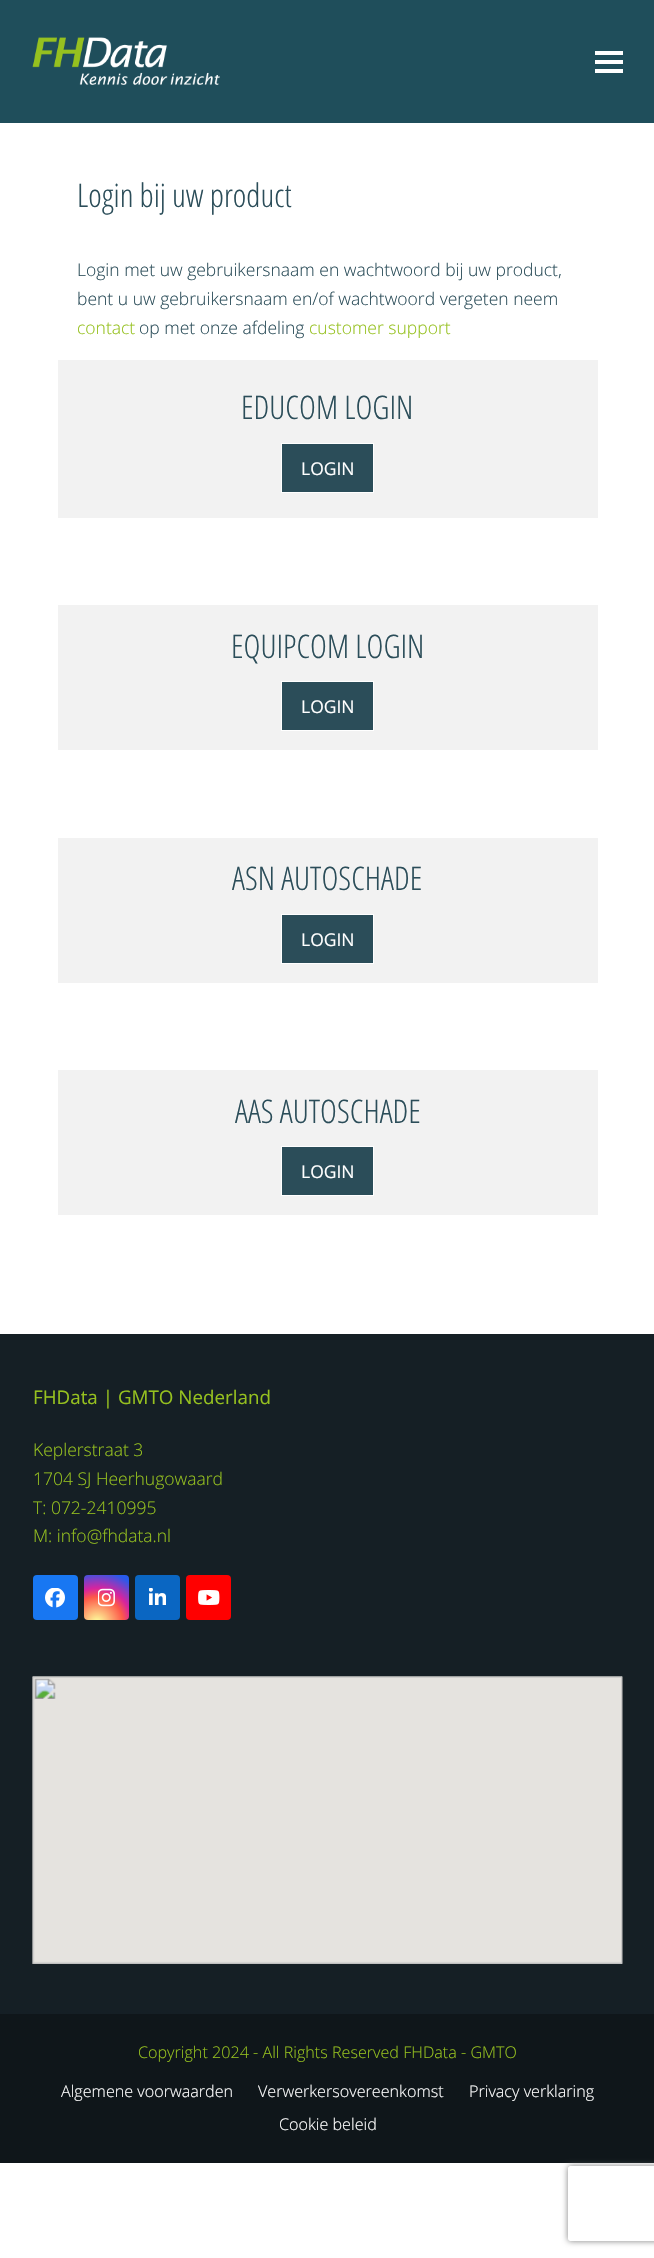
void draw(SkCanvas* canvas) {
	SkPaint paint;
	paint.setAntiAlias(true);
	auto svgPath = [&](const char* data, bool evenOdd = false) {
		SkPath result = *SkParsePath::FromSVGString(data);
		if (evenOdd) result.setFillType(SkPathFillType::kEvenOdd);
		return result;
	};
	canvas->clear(0xffffffff);
	paint.setColor(0xff1f4e5b);
	canvas->drawRect(SkRect::MakeXYWH(0, 0, 654, 123), paint);
	canvas->drawImageRect(SkImages::DeferredFromEncodedData(SkData::MakeFromFileName("img1.png")), SkRect::MakeXYWH(32, 37, 188, 48), SkSamplingOptions());
	paint.setColor(0xffffffff);
	canvas->drawRect(SkRect::MakeXYWH(595, 60, 28, 4), paint);
	canvas->drawRect(SkRect::MakeXYWH(595, 51, 28, 4), paint);
	canvas->drawRect(SkRect::MakeXYWH(595, 69, 28, 4), paint);
	SkFont f1(fontMgr->matchFamilyStyle("Open Sans Condensed", SkFontStyle(300, SkFontStyle::kNormal_Width, SkFontStyle::kUpright_Slant)), 32.5);
	f1.setSubpixel(true);
	paint.setColor(0xff2b4d59);
	canvas->drawString("Login bij uw product", 77, 207, f1, paint);
	SkFont f2(fontMgr->matchFamilyStyle("Open Sans", SkFontStyle(300, SkFontStyle::kNormal_Width, SkFontStyle::kUpright_Slant)), 17.5);
	f2.setSubpixel(true);
	canvas->drawString("Login met uw gebruikersnaam en wachtwoord bij uw product,", 77, 276, f2, paint);
	canvas->drawString("bent u uw gebruikersnaam en/of wachtwoord vergeten neem", 77, 305, f2, paint);
	paint.setColor(0xff96c11f);
	canvas->drawString("contact", 77, 334, f2, paint);
	paint.setColor(0xff2b4d59);
	canvas->drawString("op met onze afdeling", 139, 334, f2, paint);
	paint.setColor(0xff96c11f);
	canvas->drawString("customer support", 309, 334, f2, paint);
	paint.setColor(0xfff2f2f2);
	canvas->drawRect(SkRect::MakeXYWH(58, 360, 540, 158), paint);
	paint.setColor(0xff2b4d59);
	canvas->drawString("EDUCOM LOGIN", 241, 419, f1, paint);
	canvas->drawRect(SkRect::MakeXYWH(281.5, 443.5, 92, 49), paint);
	paint.setStroke(true);
	paint.setStrokeWidth(1);
	paint.setColor(0xffffffff);
	canvas->drawRect(SkRect::MakeXYWH(281.5, 443.5, 92, 49), paint);
	SkFont f3(fontMgr->matchFamilyStyle("Open Sans", SkFontStyle::Normal()), 17.5);
	f3.setSubpixel(true);
	paint.setStroke(false);
	canvas->drawString("LOGIN", 301, 475, f3, paint);
	paint.setColor(0xfff2f2f2);
	canvas->drawRect(SkRect::MakeXYWH(58, 605, 540, 145), paint);
	paint.setColor(0xff2b4d59);
	canvas->drawString("EQUIPCOM LOGIN", 231, 658, f1, paint);
	canvas->drawRect(SkRect::MakeXYWH(281.5, 681.5, 92, 49), paint);
	paint.setStroke(true);
	paint.setColor(0xffffffff);
	canvas->drawRect(SkRect::MakeXYWH(281.5, 681.5, 92, 49), paint);
	paint.setStroke(false);
	canvas->drawString("LOGIN", 301, 713, f3, paint);
	paint.setColor(0xfff2f2f2);
	canvas->drawRect(SkRect::MakeXYWH(58, 838, 540, 145), paint);
	paint.setColor(0xff2b4d59);
	canvas->drawString("ASN AUTOSCHADE", 232, 890, f1, paint);
	canvas->drawRect(SkRect::MakeXYWH(281.5, 914.5, 92, 49), paint);
	paint.setStroke(true);
	paint.setColor(0xffffffff);
	canvas->drawRect(SkRect::MakeXYWH(281.5, 914.5, 92, 49), paint);
	paint.setStroke(false);
	canvas->drawString("LOGIN", 301, 946, f3, paint);
	paint.setColor(0xfff2f2f2);
	canvas->drawRect(SkRect::MakeXYWH(58, 1070, 540, 145), paint);
	paint.setColor(0xff2b4d59);
	canvas->drawString("AAS AUTOSCHADE", 235, 1123, f1, paint);
	canvas->drawRect(SkRect::MakeXYWH(281.5, 1146.5, 92, 49), paint);
	paint.setStroke(true);
	paint.setColor(0xffffffff);
	canvas->drawRect(SkRect::MakeXYWH(281.5, 1146.5, 92, 49), paint);
	paint.setStroke(false);
	canvas->drawString("LOGIN", 301, 1178, f3, paint);
	paint.setColor(0xff151f25);
	canvas->drawRect(SkRect::MakeXYWH(0, 1334, 654, 680), paint);
	SkFont f4(fontMgr->matchFamilyStyle("Open Sans", SkFontStyle::Normal()), 18.8);
	f4.setSubpixel(true);
	paint.setColor(0xff96c11f);
	canvas->drawString("FHData | GMTO Nederland", 33, 1404, f4, paint);
	canvas->drawString("Keplerstraat 3", 33, 1456, f2, paint);
	canvas->drawString("1704 SJ Heerhugowaard", 33, 1485, f2, paint);
	canvas->drawString("T: 072-2410995", 33, 1514, f2, paint);
	canvas->drawString("M: info@fhdata.nl", 33, 1542, f2, paint);
	paint.setColor(0xff1877f2);
	canvas->drawRoundRect(SkRect::MakeXYWH(33, 1575, 45, 45), 4, 4, paint);
	canvas->drawImageRect(SkImages::DeferredFromEncodedData(SkData::MakeFromFileName("img2.png")), SkRect::MakeXYWH(45, 1588, 20, 20), SkSamplingOptions());
	{
		const SkColor colors[] = {0xfffdf497, 0xfffdf497, 0xfffd5949, 0xffd6249f, 0xff285aeb};
		const float stops[] = {0, 0.05, 0.45, 0.6, 0.9};
		paint.setShader(SkGradientShader::MakeRadial({97, 1623}, 58, colors, stops, 5, SkTileMode::kClamp));
		paint.setAlpha(255);
	}
	canvas->drawRoundRect(SkRect::MakeXYWH(84, 1575, 45, 45), 4, 4, paint);
	canvas->drawImageRect(SkImages::DeferredFromEncodedData(SkData::MakeFromFileName("img3.png")), SkRect::MakeXYWH(98, 1588, 17, 19), SkSamplingOptions());
	paint.setShader(nullptr);
	paint.setColor(0xff0a66c2);
	canvas->drawRoundRect(SkRect::MakeXYWH(135, 1575, 45, 45), 4, 4, paint);
	canvas->drawImageRect(SkImages::DeferredFromEncodedData(SkData::MakeFromFileName("img4.png")), SkRect::MakeXYWH(149, 1588, 17, 17), SkSamplingOptions());
	paint.setColor(0xffff0000);
	canvas->drawRoundRect(SkRect::MakeXYWH(186, 1575, 45, 45), 4, 4, paint);
	canvas->drawImageRect(SkImages::DeferredFromEncodedData(SkData::MakeFromFileName("img5.png")), SkRect::MakeXYWH(198, 1590, 22, 15), SkSamplingOptions());
	canvas->drawImageRect(SkImages::DeferredFromEncodedData(SkData::MakeFromFileName("img6.png")), SkRect::MakeXYWH(32, 1676, 591, 288), SkSamplingOptions());
	paint.setColor(0xff0f161a);
	canvas->drawRect(SkRect::MakeXYWH(0, 2014, 654, 149), paint);
	SkFont f5(fontMgr->matchFamilyStyle("Open Sans", SkFontStyle(300, SkFontStyle::kNormal_Width, SkFontStyle::kUpright_Slant)), 16.15);
	f5.setSubpixel(true);
	paint.setColor(0xff96c11f);
	canvas->drawString("Copyright 2024 - All Rights Reserved FHData - GMTO", 138, 2058, f5, paint);
	paint.setColor(0xffffffff);
	canvas->drawString("Algemene voorwaarden", 61, 2097, f5, paint);
	canvas->drawString("Verwerkersovereenkomst", 258, 2097, f5, paint);
	canvas->drawString("Privacy verklaring", 469, 2097, f5, paint);
	canvas->drawString("Cookie beleid", 279, 2130, f5, paint);
	canvas->save();
	canvas->clipPath(svgPath("M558 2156H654V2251H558ZM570.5 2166H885.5C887 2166 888 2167 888 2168.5V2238.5C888 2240 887 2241 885.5 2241H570.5C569 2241 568 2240 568 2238.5V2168.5C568 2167 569 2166 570.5 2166Z", true), true);
	paint.setColor(0xff808080);
	paint.setMaskFilter(SkMaskFilter::MakeBlur(kNormal_SkBlurStyle, 3));
	canvas->drawRoundRect(SkRect::MakeXYWH(568, 2166, 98, 75), 2.5, 2.5, paint);
	paint.setMaskFilter(nullptr);
	canvas->restore();
}
